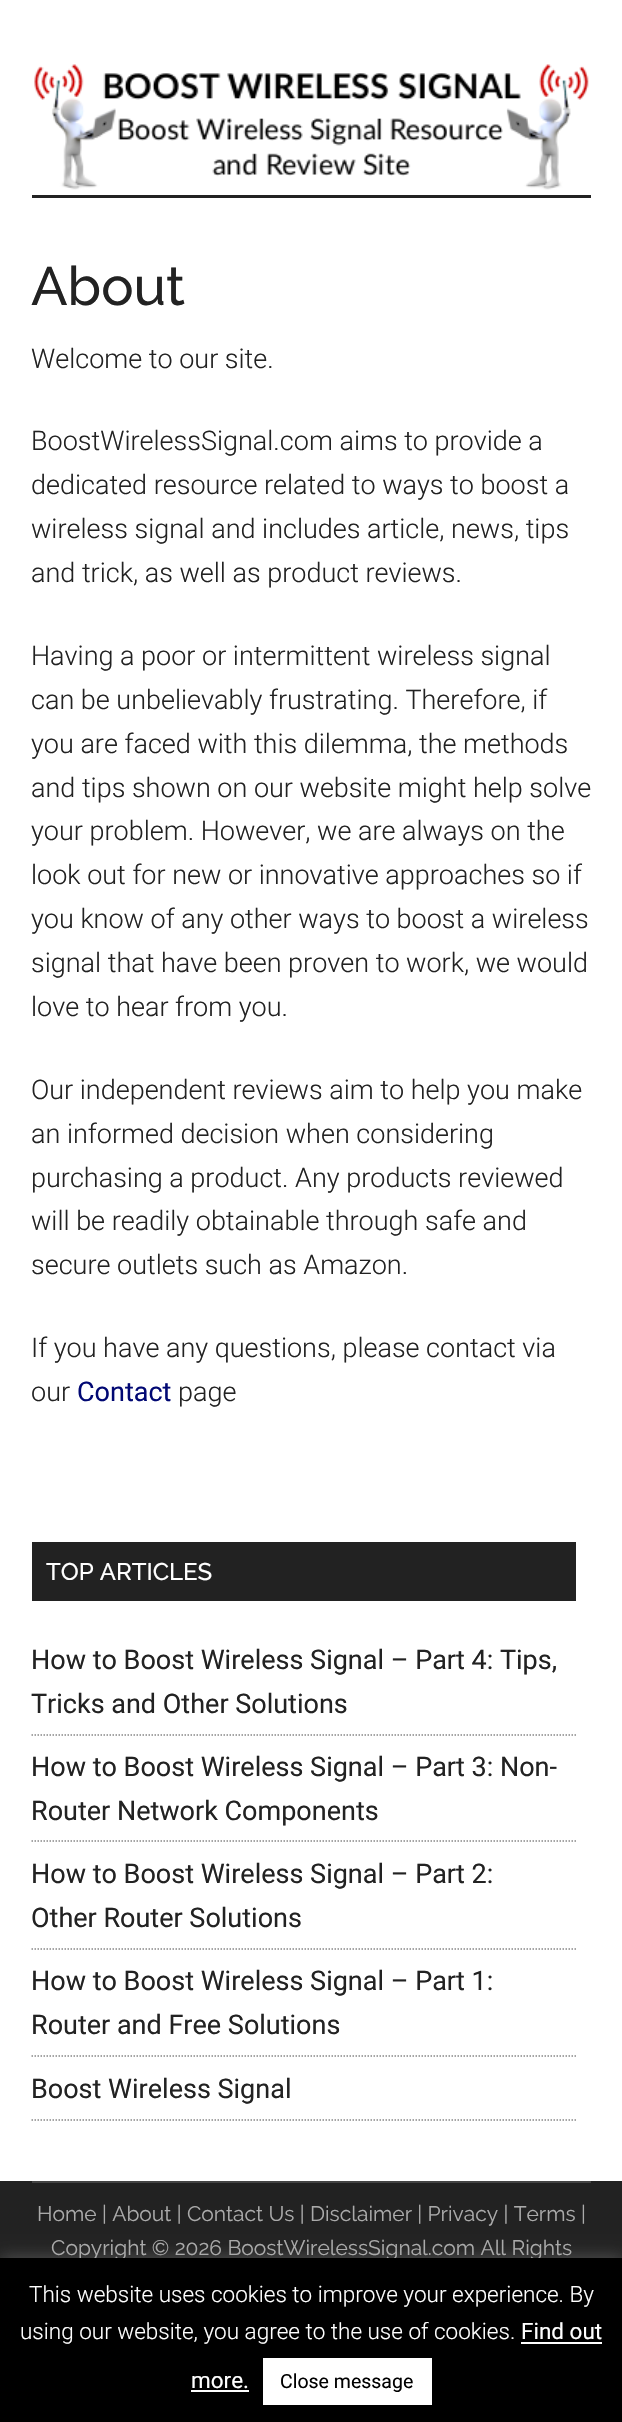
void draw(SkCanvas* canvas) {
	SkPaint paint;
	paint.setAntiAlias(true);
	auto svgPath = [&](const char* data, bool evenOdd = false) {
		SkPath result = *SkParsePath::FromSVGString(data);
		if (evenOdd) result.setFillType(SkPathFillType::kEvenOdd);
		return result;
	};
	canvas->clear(0xffffffff);
	paint.setColor(0xff222222);
	canvas->drawRect(SkRect::MakeXYWH(32, 195, 559, 3), paint);
	canvas->drawImageRect(SkImages::DeferredFromEncodedData(SkData::MakeFromFileName("img1.png")), SkRect::MakeXYWH(34, 64, 555, 126), SkSamplingOptions());
	SkFont f1(fontMgr->matchFamilyStyle("Raleway", SkFontStyle(500, SkFontStyle::kNormal_Width, SkFontStyle::kUpright_Slant)), 54);
	f1.setSubpixel(true);
	canvas->drawString("About", 31, 305, f1, paint);
	SkFont f2(fontMgr->matchFamilyStyle("Roboto", SkFontStyle(300, SkFontStyle::kNormal_Width, SkFontStyle::kUpright_Slant)), 27);
	f2.setSubpixel(true);
	canvas->drawString("Welcome to our site.", 31, 368, f2, paint);
	canvas->drawString("BoostWirelessSignal.com aims to provide a", 31, 450, f2, paint);
	canvas->drawString("dedicated resource related to ways to boost a", 31, 494, f2, paint);
	canvas->drawString("wireless signal and includes article, news, tips", 31, 538, f2, paint);
	canvas->drawString("and trick, as well as product reviews.", 31, 582, f2, paint);
	canvas->drawString("Having a poor or intermittent wireless signal", 31, 665, f2, paint);
	canvas->drawString("can be unbelievably frustrating. Therefore, if", 31, 709, f2, paint);
	canvas->drawString("you are faced with this dilemma, the methods", 31, 753, f2, paint);
	canvas->drawString("and tips shown on our website might help solve", 31, 797, f2, paint);
	canvas->drawString("your problem. However, we are always on the", 31, 840, f2, paint);
	canvas->drawString("look out for new or innovative approaches so if", 31, 884, f2, paint);
	canvas->drawString("you know of any other ways to boost a wireless", 31, 928, f2, paint);
	canvas->drawString("signal that have been proven to work, we would", 31, 972, f2, paint);
	canvas->drawString("love to hear from you.", 31, 1016, f2, paint);
	canvas->drawString("Our independent reviews aim to help you make", 31, 1099, f2, paint);
	canvas->drawString("an informed decision when considering", 31, 1143, f2, paint);
	canvas->drawString("purchasing a product. Any products reviewed", 31, 1187, f2, paint);
	canvas->drawString("will be readily obtainable through safe and", 31, 1230, f2, paint);
	canvas->drawString("secure outlets such as Amazon.", 31, 1274, f2, paint);
	canvas->drawString("If you have any questions, please contact via", 31, 1357, f2, paint);
	canvas->drawString("our", 31, 1401, f2, paint);
	SkFont f3(fontMgr->matchFamilyStyle("Roboto", SkFontStyle::Normal()), 27);
	f3.setSubpixel(true);
	paint.setColor(0xff010873);
	canvas->drawString("Contact", 77, 1401, f3, paint);
	paint.setColor(0xff222222);
	canvas->drawString("page", 178, 1401, f2, paint);
	canvas->drawRect(SkRect::MakeXYWH(32, 1542, 544, 59), paint);
	SkFont f4(fontMgr->matchFamilyStyle("Raleway", SkFontStyle(500, SkFontStyle::kNormal_Width, SkFontStyle::kUpright_Slant)), 24);
	f4.setSubpixel(true);
	paint.setColor(0xffffffff);
	canvas->drawString("TOP ARTICLES", 46, 1580, f4, paint);
	paint.setStroke(true);
	paint.setStrokeWidth(1.5);
	paint.setColor(0xff888888);
	paint.setPathEffect(SkDashPathEffect::Make({{1.5f, 1.5f}}, 0));
	canvas->drawPath(svgPath("M31.5 1735H576"), paint);
	paint.setPathEffect(nullptr);
	paint.setStroke(false);
	paint.setColor(0xff222222);
	canvas->drawString("How to Boost Wireless Signal – Part 4: Tips,", 31, 1669, f3, paint);
	canvas->drawString("Tricks and Other Solutions", 31, 1713, f3, paint);
	paint.setStroke(true);
	paint.setColor(0xff888888);
	paint.setPathEffect(SkDashPathEffect::Make({{1.5f, 1.5f}}, 0));
	canvas->drawPath(svgPath("M31.5 1841H576"), paint);
	paint.setPathEffect(nullptr);
	paint.setStroke(false);
	paint.setColor(0xff222222);
	canvas->drawString("How to Boost Wireless Signal – Part 3: Non-", 31, 1776, f3, paint);
	canvas->drawString("Router Network Components", 31, 1820, f3, paint);
	paint.setStroke(true);
	paint.setColor(0xff888888);
	paint.setPathEffect(SkDashPathEffect::Make({{1.5f, 1.5f}}, 0));
	canvas->drawPath(svgPath("M31.5 1949H576"), paint);
	paint.setPathEffect(nullptr);
	paint.setStroke(false);
	paint.setColor(0xff222222);
	canvas->drawString("How to Boost Wireless Signal – Part 2:", 31, 1883, f3, paint);
	canvas->drawString("Other Router Solutions", 31, 1927, f3, paint);
	paint.setStroke(true);
	paint.setColor(0xff888888);
	paint.setPathEffect(SkDashPathEffect::Make({{1.5f, 1.5f}}, 0));
	canvas->drawPath(svgPath("M31.5 2056H576"), paint);
	paint.setPathEffect(nullptr);
	paint.setStroke(false);
	paint.setColor(0xff222222);
	canvas->drawString("How to Boost Wireless Signal – Part 1:", 31, 1990, f3, paint);
	canvas->drawString("Router and Free Solutions", 31, 2034, f3, paint);
	paint.setStroke(true);
	paint.setColor(0xff888888);
	paint.setPathEffect(SkDashPathEffect::Make({{1.5f, 1.5f}}, 0));
	canvas->drawPath(svgPath("M31.5 2120H576"), paint);
	paint.setPathEffect(nullptr);
	paint.setStroke(false);
	paint.setColor(0xff222222);
	canvas->drawString("Boost Wireless Signal", 31, 2098, f3, paint);
	canvas->drawRect(SkRect::MakeXYWH(0, 2181, 622, 77), paint);
	paint.setColor(0xff444444);
	canvas->drawRect(SkRect::MakeXYWH(32, 2181, 559, 2), paint);
	SkFont f5(fontMgr->matchFamilyStyle("Raleway", SkFontStyle::Normal()), 21);
	f5.setSubpixel(true);
	paint.setColor(0xffaaaaaa);
	canvas->drawString("Home | About | Contact Us | Disclaimer | Privacy | Terms |", 37, 2221, f5, paint);
	canvas->drawString("Copyright © 2026 BoostWirelessSignal.com All Rights", 51, 2255, f5, paint);
	paint.setColor(0x4dacabab);
	paint.setMaskFilter(SkMaskFilter::MakeBlur(kNormal_SkBlurStyle, 7.5));
	canvas->drawRect(SkRect::MakeXYWH(0, 2256, 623, 165), paint);
	paint.setMaskFilter(nullptr);
	paint.setColor(0xff000000);
	canvas->drawRect(SkRect::MakeXYWH(0, 2258, 622, 164), paint);
	SkFont f6(fontMgr->matchFamilyStyle("Roboto", SkFontStyle(300, SkFontStyle::kNormal_Width, SkFontStyle::kUpright_Slant)), 22.5);
	f6.setSubpixel(true);
	paint.setColor(0xffffffff);
	canvas->drawString("This website uses cookies to improve your experience. By", 29, 2302, f6, paint);
	canvas->drawString("using our website, you agree to the use of cookies.", 20, 2339, f6, paint);
	SkFont f7(fontMgr->matchFamilyStyle("Roboto", SkFontStyle::Normal()), 22.5);
	f7.setSubpixel(true);
	canvas->drawString("Find out", 521, 2339, f7, paint);
	canvas->drawRect(SkRect::MakeXYWH(521, 2342, 81, 2), paint);
	canvas->drawString("more.", 191, 2388, f7, paint);
	canvas->drawRect(SkRect::MakeXYWH(191, 2390, 58, 2), paint);
	canvas->drawRect(SkRect::MakeXYWH(263, 2358, 169, 47), paint);
	SkFont f8(fontMgr->matchFamilyStyle("Roboto", SkFontStyle::Normal()), 19.5);
	f8.setSubpixel(true);
	paint.setColor(0xff000000);
	canvas->drawString("Close message", 280, 2388, f8, paint);
}
